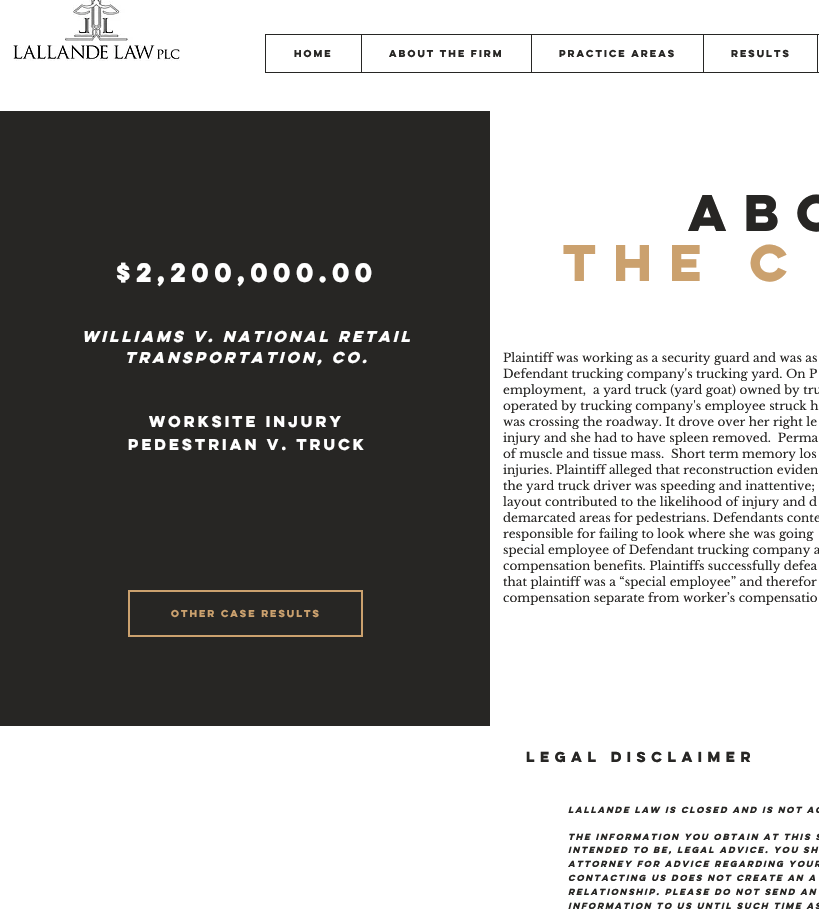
void draw(SkCanvas* canvas) {
	SkPaint paint;
	paint.setAntiAlias(true);
	auto spacedText = [&](const char* s, float x, float y, const SkFont& font, const SkPaint& ink, float letter, float word) {
		std::vector<SkGlyphID> glyphs(font.countText(s, strlen(s), SkTextEncoding::kUTF8));
		std::vector<float> xs(glyphs.size());
		font.textToGlyphs(s, strlen(s), SkTextEncoding::kUTF8, glyphs);
		font.getXPos(glyphs, xs, x);
		float extra = 0;
		for (size_t i = 0; i < glyphs.size(); i++) {
			xs[i] += extra;
			extra += letter + word * (glyphs[i] == font.unicharToGlyph(' '));
		}
		canvas->drawTextBlob(SkTextBlob::MakeFromPosHGlyphs(glyphs, xs, y, font), 0, 0, ink);
	};
	canvas->clear(0xffffffff);
	canvas->drawImageRect(SkImages::DeferredFromEncodedData(SkData::MakeFromFileName("img1.png")), SkRect::MakeXYWH(13, 0, 167, 61), SkSamplingOptions());
	paint.setStroke(true);
	paint.setStrokeWidth(1);
	paint.setColor(0xff272624);
	canvas->drawRect(SkRect::MakeXYWH(265.5, 34.5, 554, 38), paint);
	SkFont f1(fontMgr->matchFamilyStyle("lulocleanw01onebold", SkFontStyle::Bold()), 9);
	f1.setSubpixel(true);
	paint.setStroke(false);
	canvas->drawString("Home", 294, 57, f1, paint);
	canvas->drawRect(SkRect::MakeXYWH(361, 35, 1, 37), paint);
	canvas->drawString("About the Firm", 389, 57, f1, paint);
	canvas->drawRect(SkRect::MakeXYWH(531, 35, 1, 37), paint);
	canvas->drawString("Practice Areas", 559, 57, f1, paint);
	canvas->drawRect(SkRect::MakeXYWH(703, 35, 1, 37), paint);
	canvas->drawString("Results", 731, 57, f1, paint);
	canvas->drawRect(SkRect::MakeXYWH(817, 35, 1, 37), paint);
	canvas->drawRect(SkRect::MakeXYWH(0, 111, 490, 615), paint);
	SkFont f2(fontMgr->matchFamilyStyle("lulocleanw01onebold", SkFontStyle::Bold()), 24);
	f2.setSubpixel(true);
	paint.setColor(0xffffffff);
	canvas->drawString("$2,200,000.00", 116, 282, f2, paint);
	SkFont f3(fontMgr->matchFamilyStyle("lulocleanw01onebold", SkFontStyle::BoldItalic()), 14);
	f3.setSubpixel(true);
	canvas->drawString("Williams v. National Retail", 82, 342, f3, paint);
	canvas->drawString("Transportation, Co.", 125, 363, f3, paint);
	SkFont f4(fontMgr->matchFamilyStyle("lulocleanw01onebold", SkFontStyle::Bold()), 14);
	f4.setSubpixel(true);
	canvas->drawString("WORKSITE INJURY", 149, 427, f4, paint);
	canvas->drawString("PEDESTRIAN V. TRUCK", 128, 450, f4, paint);
	paint.setStroke(true);
	paint.setStrokeWidth(2);
	paint.setColor(0xffcba16e);
	canvas->drawRect(SkRect::MakeXYWH(129, 591, 233, 45), paint);
	paint.setStroke(false);
	canvas->drawString("OTHER CASE RESULTS", 171, 617, f1, paint);
	SkFont f5(fontMgr->matchFamilyStyle("lulocleanw01onebold", SkFontStyle::Bold()), 46);
	f5.setSubpixel(true);
	paint.setColor(0xff272624);
	spacedText("abo", 688, 231, f5, paint, 7, 0);
	paint.setColor(0xffcba16e);
	spacedText("the c", 563, 281, f5, paint, 7, 0);
	SkFont f6(fontMgr->matchFamilyStyle("Libre Baskerville", SkFontStyle::Normal()), 12);
	f6.setSubpixel(true);
	paint.setColor(0xff272624);
	canvas->drawString("Plaintiff was working as a security guard and was as", 503, 362, f6, paint);
	canvas->drawString("Defendant trucking company's trucking yard. On P", 503, 378, f6, paint);
	canvas->drawString("employment,  a yard truck (yard goat) owned by tru", 503, 394, f6, paint);
	canvas->drawString("operated by trucking company's employee struck h", 503, 410, f6, paint);
	canvas->drawString("was crossing the roadway. It drove over her right le", 503, 426, f6, paint);
	canvas->drawString("injury and she had to have spleen removed.  Perma", 503, 442, f6, paint);
	canvas->drawString("of muscle and tissue mass.  Short term memory los", 503, 458, f6, paint);
	canvas->drawString("injuries. Plaintiff alleged that reconstruction eviden", 503, 474, f6, paint);
	canvas->drawString("the yard truck driver was speeding and inattentive;", 503, 490, f6, paint);
	canvas->drawString("layout contributed to the likelihood of injury and d", 503, 506, f6, paint);
	canvas->drawString("demarcated areas for pedestrians. Defendants conte", 503, 522, f6, paint);
	canvas->drawString("responsible for failing to look where she was going", 503, 538, f6, paint);
	canvas->drawString("special employee of Defendant trucking company a", 503, 554, f6, paint);
	canvas->drawString("compensation benefits. Plaintiffs successfully defea", 503, 570, f6, paint);
	canvas->drawString("that plaintiff was a “special employee” and therefor", 503, 586, f6, paint);
	canvas->drawString("compensation separate from worker’s compensatio", 503, 602, f6, paint);
	SkFont f7(fontMgr->matchFamilyStyle("lulocleanw01onebold", SkFontStyle::Bold()), 13);
	f7.setSubpixel(true);
	spacedText("LEGAL DISCLAIMER", 526, 762, f7, paint, 2.6, 0);
	SkFont f8(fontMgr->matchFamilyStyle("lulocleanw01onebold", SkFontStyle::BoldItalic()), 8);
	f8.setSubpixel(true);
	canvas->drawString("LALLANDE LAW IS CLOSED AND IS NOT AC", 568, 813, f8, paint);
	canvas->drawString("The information you obtain at this s", 568, 840, f8, paint);
	canvas->drawString("intended to be, legal advice. You sh", 568, 853, f8, paint);
	canvas->drawString("attorney for advice regarding your", 568, 867, f8, paint);
	canvas->drawString("Contacting us does not create an a", 568, 881, f8, paint);
	canvas->drawString("relationship. Please do not send an", 568, 895, f8, paint);
	canvas->drawString("information to us until such time as", 568, 909, f8, paint);
}
